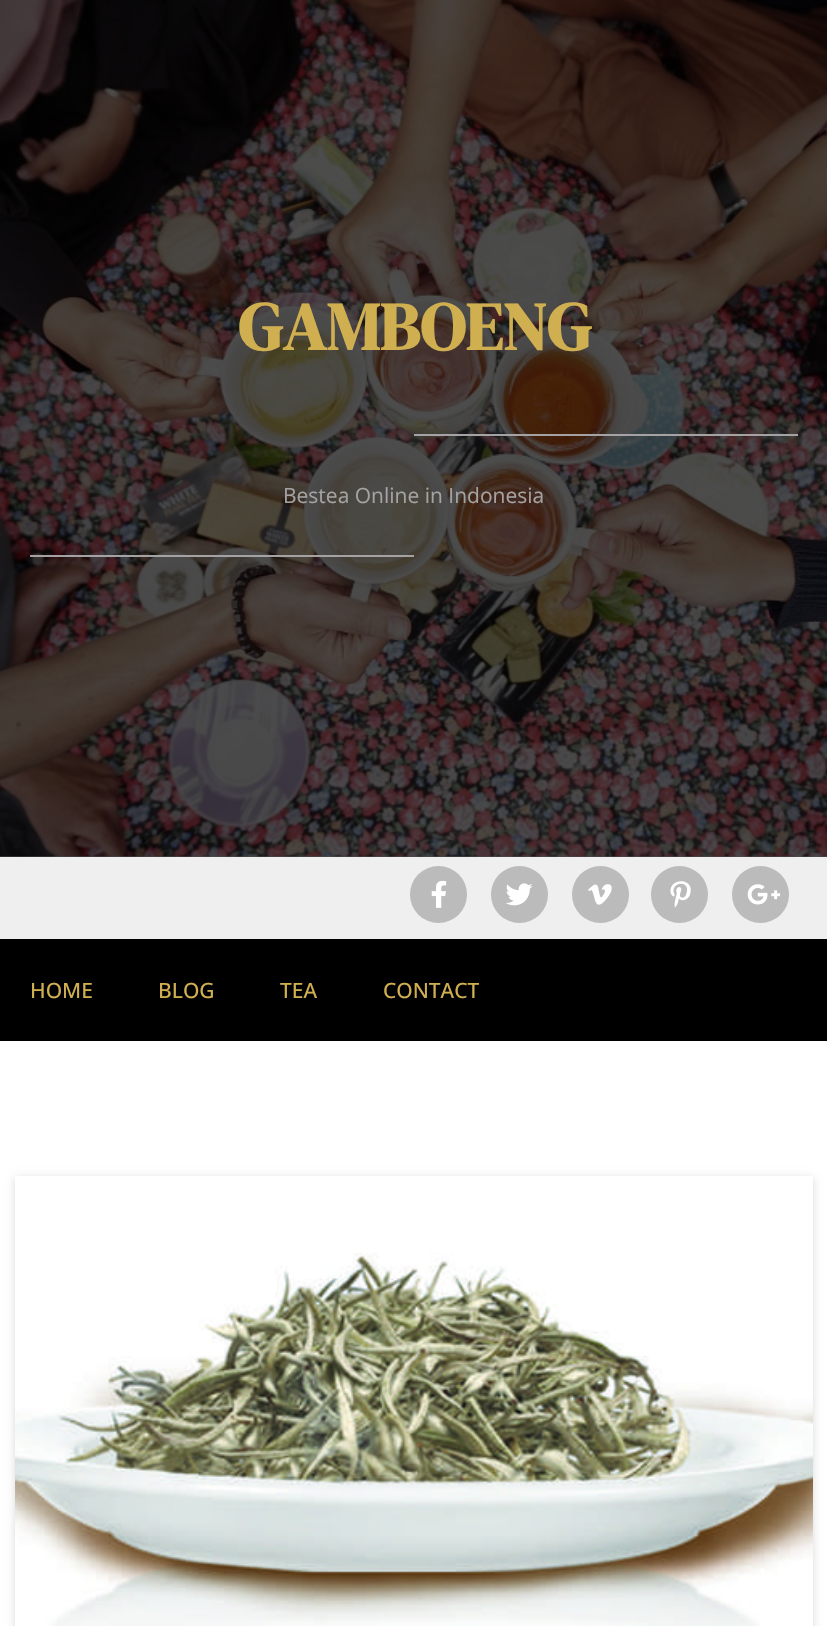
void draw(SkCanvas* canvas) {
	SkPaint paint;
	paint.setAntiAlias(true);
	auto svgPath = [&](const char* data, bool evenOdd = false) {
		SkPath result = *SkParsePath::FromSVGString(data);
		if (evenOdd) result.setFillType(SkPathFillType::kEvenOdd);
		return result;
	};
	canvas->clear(0xffffffff);
	paint.setColor(0xff4d4d4d);
	canvas->drawRect(SkRect::MakeXYWH(0, 856, 827, 1), paint);
	canvas->drawImageRect(SkImages::DeferredFromEncodedData(SkData::MakeFromFileName("img1.png")), SkRect::MakeXYWH(0, 0, 827, 857), SkSamplingOptions());
	SkFont f1(fontMgr->matchFamilyStyle("DM Serif Display", SkFontStyle::Bold()), 67.5);
	f1.setSubpixel(true);
	paint.setColor(0xffd0af51);
	canvas->drawString("GAMBOENG", 238, 350, f1, paint);
	paint.setColor(0xffa4a2a2);
	canvas->drawRect(SkRect::MakeXYWH(414, 434, 384, 2), paint);
	SkFont f2(fontMgr->matchFamilyStyle("Open Sans", SkFontStyle::Normal()), 21);
	f2.setSubpixel(true);
	canvas->drawString("Bestea Online in Indonesia", 283, 503, f2, paint);
	canvas->drawRect(SkRect::MakeXYWH(30, 555, 384, 2), paint);
	paint.setColor(0xffefefef);
	canvas->drawRect(SkRect::MakeXYWH(0, 857, 827, 82), paint);
	paint.setColor(0xffbbbbbb);
	canvas->drawCircle(438.5, 894.5, 28.5, paint);
	canvas->drawImageRect(SkImages::DeferredFromEncodedData(SkData::MakeFromFileName("img2.png")), SkRect::MakeXYWH(431, 880, 16, 28), SkSamplingOptions());
	canvas->drawCircle(519.5, 894.5, 28.5, paint);
	canvas->drawImageRect(SkImages::DeferredFromEncodedData(SkData::MakeFromFileName("img3.png")), SkRect::MakeXYWH(506, 883, 27, 23), SkSamplingOptions());
	canvas->drawCircle(600.5, 894.5, 28.5, paint);
	canvas->drawImageRect(SkImages::DeferredFromEncodedData(SkData::MakeFromFileName("img4.png")), SkRect::MakeXYWH(588, 884, 24, 21), SkSamplingOptions());
	canvas->drawCircle(679.5, 894.5, 28.5, paint);
	canvas->drawImageRect(SkImages::DeferredFromEncodedData(SkData::MakeFromFileName("img5.png")), SkRect::MakeXYWH(670, 881, 21, 27), SkSamplingOptions());
	canvas->drawCircle(760.5, 894.5, 28.5, paint);
	canvas->drawImageRect(SkImages::DeferredFromEncodedData(SkData::MakeFromFileName("img6.png")), SkRect::MakeXYWH(747, 884, 34, 21), SkSamplingOptions());
	paint.setColor(0xff000000);
	canvas->drawRect(SkRect::MakeXYWH(0, 939, 827, 102), paint);
	SkFont f3(fontMgr->matchFamilyStyle("Open Sans", SkFontStyle(500, SkFontStyle::kNormal_Width, SkFontStyle::kUpright_Slant)), 21);
	f3.setSubpixel(true);
	paint.setColor(0xffd0af51);
	canvas->drawString("HOME", 30, 998, f3, paint);
	canvas->drawString("BLOG", 158, 998, f3, paint);
	canvas->drawString("TEA", 280, 998, f3, paint);
	canvas->drawString("CONTACT", 383, 998, f3, paint);
	canvas->save();
	canvas->clipPath(svgPath("M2 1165H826V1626H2ZM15 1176H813V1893H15Z", true), true);
	paint.setColor(0x26000000);
	paint.setMaskFilter(SkMaskFilter::MakeBlur(kNormal_SkBlurStyle, 4));
	canvas->drawRect(SkRect::MakeXYWH(15, 1178, 798, 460), paint);
	paint.setMaskFilter(nullptr);
	canvas->restore();
	canvas->drawImageRect(SkImages::DeferredFromEncodedData(SkData::MakeFromFileName("img7.png")), SkRect::MakeXYWH(15, 1252, 798, 374), SkSamplingOptions());
}
